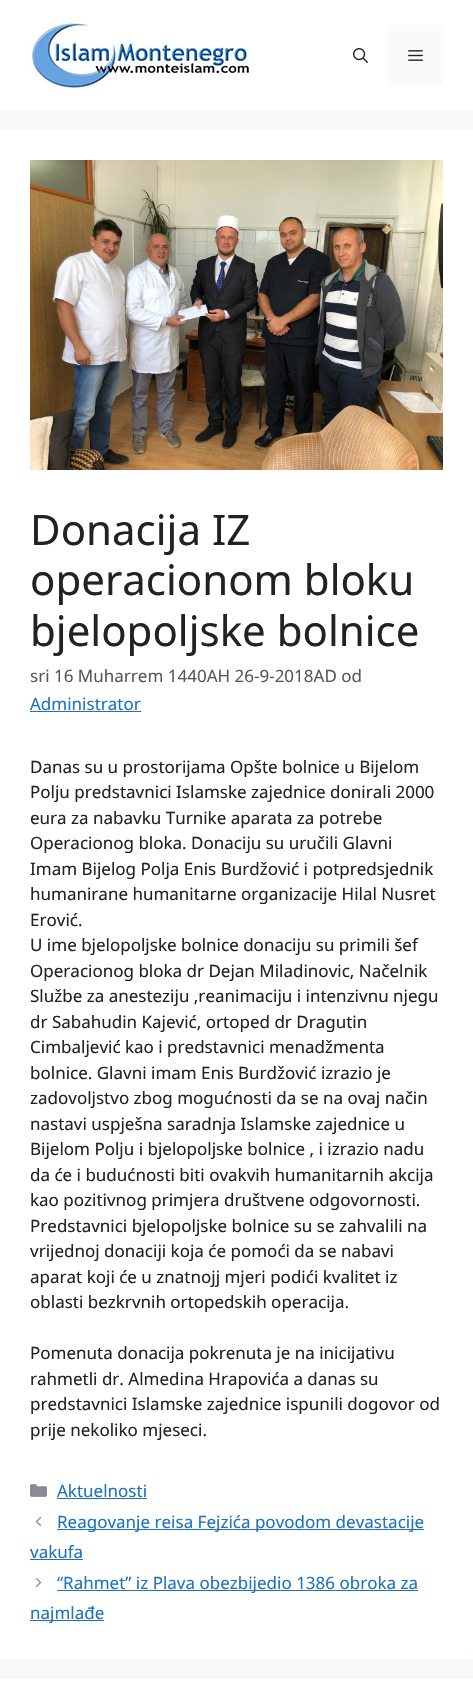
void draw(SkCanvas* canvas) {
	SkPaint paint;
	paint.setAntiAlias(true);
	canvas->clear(0xfff7f8f9);
	paint.setColor(0xffffffff);
	canvas->drawRect(SkRect::MakeXYWH(0, 0, 473, 110), paint);
	canvas->drawImageRect(SkImages::DeferredFromEncodedData(SkData::MakeFromFileName("img1.png")), SkRect::MakeXYWH(30, 20, 222, 70), SkSamplingOptions());
	canvas->drawImageRect(SkImages::DeferredFromEncodedData(SkData::MakeFromFileName("img2.png")), SkRect::MakeXYWH(353, 48, 15, 15), SkSamplingOptions());
	paint.setColor(0xfffafafa);
	canvas->drawRect(SkRect::MakeXYWH(388, 25, 55, 60), paint);
	canvas->drawImageRect(SkImages::DeferredFromEncodedData(SkData::MakeFromFileName("img3.png")), SkRect::MakeXYWH(408, 50, 15, 11), SkSamplingOptions());
	paint.setColor(0xffffffff);
	canvas->drawRect(SkRect::MakeXYWH(0, 130, 473, 1529), paint);
	canvas->drawImageRect(SkImages::DeferredFromEncodedData(SkData::MakeFromFileName("img4.png")), SkRect::MakeXYWH(30, 160, 413, 310), SkSamplingOptions());
	SkFont f1(fontMgr->matchFamilyStyle("Noto Sans", SkFontStyle::Normal()), 42);
	f1.setSubpixel(true);
	paint.setColor(0xff222222);
	canvas->drawString("Donacija IZ", 30, 545, f1, paint);
	canvas->drawString("operacionom bloku", 30, 595, f1, paint);
	canvas->drawString("bjelopoljske bolnice", 30, 646, f1, paint);
	SkFont f2(fontMgr->matchFamilyStyle("Noto Sans", SkFontStyle::Normal()), 17);
	f2.setSubpixel(true);
	paint.setColor(0xff575760);
	canvas->drawString("sri 16 Muharrem 1440AH 26-9-2018AD od", 30, 682, f2, paint);
	paint.setColor(0xff1e73be);
	canvas->drawString("Administrator", 30, 710, f2, paint);
	canvas->drawRect(SkRect::MakeXYWH(30, 711, 111, 1), paint);
	paint.setColor(0xff222222);
	canvas->drawString("Danas su u prostorijama Opšte bolnice u Bijelom", 30, 773, f2, paint);
	canvas->drawString("Polju predstavnici Islamske zajednice donirali 2000", 30, 798, f2, paint);
	canvas->drawString("eura za nabavku Turnike aparata za potrebe", 30, 824, f2, paint);
	canvas->drawString("Operacionog bloka. Donaciju su uručili Glavni", 30, 849, f2, paint);
	canvas->drawString("Imam Bijelog Polja Enis Burdžović i potpredsjednik", 30, 875, f2, paint);
	canvas->drawString("humanirane humanitarne organizacije Hilal Nusret", 30, 900, f2, paint);
	canvas->drawString("Erović.", 30, 926, f2, paint);
	canvas->drawString("U ime bjelopoljske bolnice donaciju su primili šef", 30, 951, f2, paint);
	canvas->drawString("Operacionog bloka dr Dejan Miladinovic, Načelnik", 30, 977, f2, paint);
	canvas->drawString("Službe za anesteziju ,reanimaciju i intenzivnu njegu", 30, 1002, f2, paint);
	canvas->drawString("dr Sabahudin Kajević, ortoped dr Dragutin", 30, 1028, f2, paint);
	canvas->drawString("Cimbaljević kao i predstavnici menadžmenta", 30, 1053, f2, paint);
	canvas->drawString("bolnice. Glavni imam Enis Burdžović izrazio je", 30, 1079, f2, paint);
	canvas->drawString("zadovoljstvo zbog mogućnosti da se na ovaj način", 30, 1104, f2, paint);
	canvas->drawString("nastavi uspješna saradnja Islamske zajednice u", 30, 1130, f2, paint);
	canvas->drawString("Bijelom Polju i bjelopoljske bolnice , i izrazio nadu", 30, 1155, f2, paint);
	canvas->drawString("da će i budućnosti biti ovakvih humanitarnih akcija", 30, 1181, f2, paint);
	canvas->drawString("kao pozitivnog primjera društvene odgovornosti.", 30, 1206, f2, paint);
	canvas->drawString("Predstavnici bjelopoljske bolnice su se zahvalili na", 30, 1232, f2, paint);
	canvas->drawString("vrijednoj donaciji koja će pomoći da se nabavi", 30, 1257, f2, paint);
	canvas->drawString("aparat koji će u znatnojj mjeri podići kvalitet iz", 30, 1283, f2, paint);
	canvas->drawString("oblasti bezkrvnih ortopedskih operacija.", 30, 1308, f2, paint);
	canvas->drawString("Pomenuta donacija pokrenuta je na inicijativu", 30, 1359, f2, paint);
	canvas->drawString("rahmetli dr. Almedina Hrapovića a danas su", 30, 1385, f2, paint);
	canvas->drawString("predstavnici Islamske zajednice ispunili dogovor od", 30, 1410, f2, paint);
	canvas->drawString("prije nekoliko mjeseci.", 30, 1436, f2, paint);
	canvas->drawImageRect(SkImages::DeferredFromEncodedData(SkData::MakeFromFileName("img5.png")), SkRect::MakeXYWH(30, 1484, 17, 13), SkSamplingOptions());
	paint.setColor(0xff1e73be);
	canvas->drawString("Aktuelnosti", 57, 1497, f2, paint);
	canvas->drawRect(SkRect::MakeXYWH(57, 1498, 90, 1), paint);
	canvas->drawImageRect(SkImages::DeferredFromEncodedData(SkData::MakeFromFileName("img6.png")), SkRect::MakeXYWH(35, 1516, 7, 11), SkSamplingOptions());
	canvas->drawRect(SkRect::MakeXYWH(57, 1529, 367, 1), paint);
	canvas->drawString("Reagovanje reisa Fejzića povodom devastacije", 57, 1528, f2, paint);
	canvas->drawString("vakufa", 30, 1558, f2, paint);
	canvas->drawRect(SkRect::MakeXYWH(30, 1559, 53, 1), paint);
	canvas->drawImageRect(SkImages::DeferredFromEncodedData(SkData::MakeFromFileName("img7.png")), SkRect::MakeXYWH(35, 1577, 7, 11), SkSamplingOptions());
	canvas->drawRect(SkRect::MakeXYWH(57, 1590, 361, 1), paint);
	canvas->drawString("“Rahmet” iz Plava obezbijedio 1386 obroka za", 57, 1589, f2, paint);
	canvas->drawRect(SkRect::MakeXYWH(30, 1620, 74, 1), paint);
	canvas->drawString("najmlađe", 30, 1619, f2, paint);
	paint.setColor(0xffffffff);
	canvas->drawRect(SkRect::MakeXYWH(0, 1679, 473, 11), paint);
}
